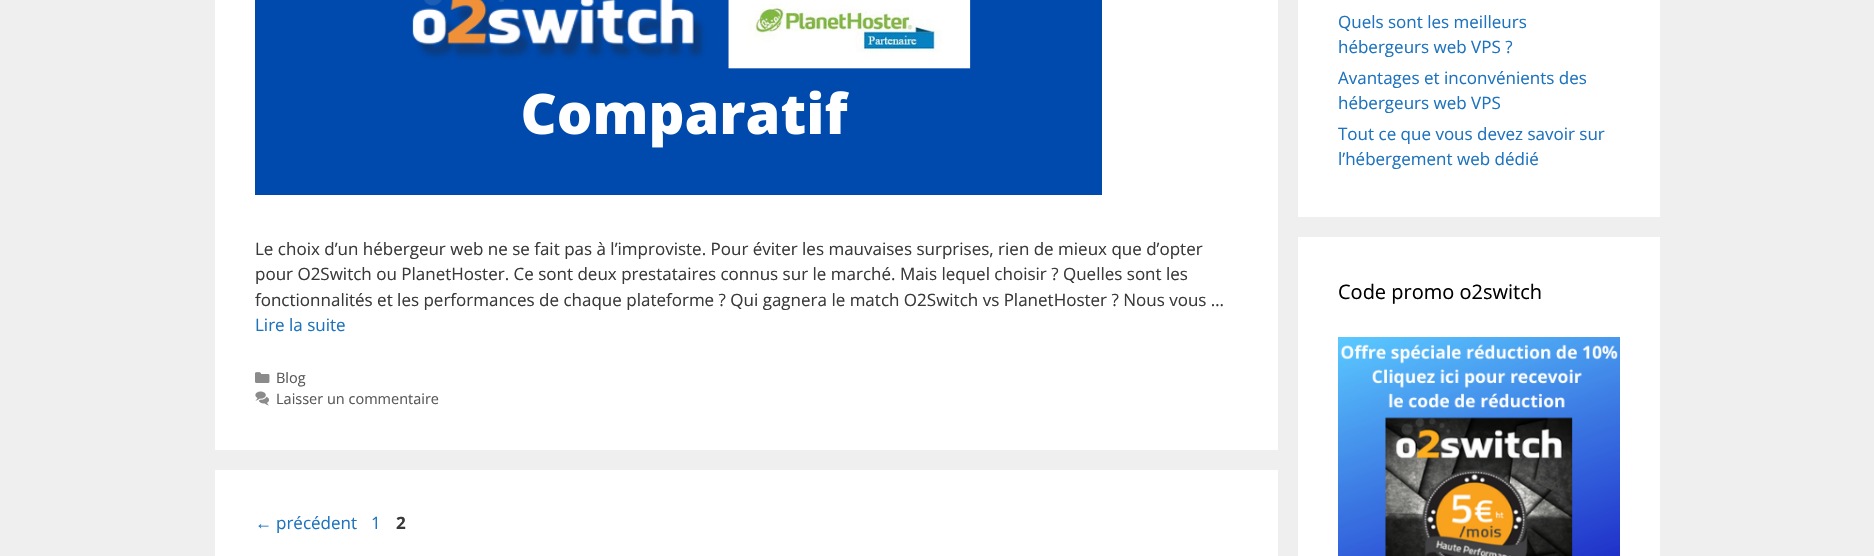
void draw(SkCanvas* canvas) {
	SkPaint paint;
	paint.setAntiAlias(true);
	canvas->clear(0xffefefef);
	paint.setColor(0xffffffff);
	canvas->drawRect(SkRect::MakeXYWH(1298, 0, 362, 217), paint);
	SkFont f1(fontMgr->matchFamilyStyle("Open Sans", SkFontStyle::Normal()), 17);
	f1.setSubpixel(true);
	paint.setColor(0xff1e73be);
	canvas->drawString("Quels sont les meilleurs", 1338, 28, f1, paint);
	canvas->drawString("hébergeurs web VPS ?", 1338, 53, f1, paint);
	canvas->drawString("Avantages et inconvénients des", 1338, 84, f1, paint);
	canvas->drawString("hébergeurs web VPS", 1338, 109, f1, paint);
	canvas->drawString("Tout ce que vous devez savoir sur", 1338, 140, f1, paint);
	canvas->drawString("l’hébergement web dédié", 1338, 165, f1, paint);
	paint.setColor(0xffffffff);
	canvas->drawRect(SkRect::MakeXYWH(1298, 237, 362, 319), paint);
	SkFont f2(fontMgr->matchFamilyStyle("Open Sans", SkFontStyle::Normal()), 20);
	f2.setSubpixel(true);
	paint.setColor(0xff000000);
	canvas->drawString("Code promo o2switch", 1338, 299, f2, paint);
	canvas->drawImageRect(SkImages::DeferredFromEncodedData(SkData::MakeFromFileName("img1.png")), SkRect::MakeXYWH(1338, 337, 282, 219), SkSamplingOptions());
	paint.setColor(0xffffffff);
	canvas->drawRect(SkRect::MakeXYWH(215, 0, 1063, 450), paint);
	canvas->drawImageRect(SkImages::DeferredFromEncodedData(SkData::MakeFromFileName("img2.png")), SkRect::MakeXYWH(255, 0, 847, 195), SkSamplingOptions());
	paint.setColor(0xff3a3a3a);
	canvas->drawString("Le choix d’un hébergeur web ne se fait pas à l’improviste. Pour éviter les mauvaises surprises, rien de mieux que d’opter", 255, 255, f1, paint);
	canvas->drawString("pour O2Switch ou PlanetHoster. Ce sont deux prestataires connus sur le marché. Mais lequel choisir ? Quelles sont les", 255, 280, f1, paint);
	canvas->drawString("fonctionnalités et les performances de chaque plateforme ? Qui gagnera le match O2Switch vs PlanetHoster ? Nous vous …", 255, 306, f1, paint);
	paint.setColor(0xff1e73be);
	canvas->drawString("Lire la suite", 255, 331, f1, paint);
	canvas->drawImageRect(SkImages::DeferredFromEncodedData(SkData::MakeFromFileName("img3.png")), SkRect::MakeXYWH(255, 372, 15, 11), SkSamplingOptions());
	SkFont f3(fontMgr->matchFamilyStyle("Open Sans", SkFontStyle::Normal()), 14.5);
	f3.setSubpixel(true);
	paint.setColor(0xff595959);
	canvas->drawString("Blog", 276, 383, f3, paint);
	canvas->drawImageRect(SkImages::DeferredFromEncodedData(SkData::MakeFromFileName("img4.png")), SkRect::MakeXYWH(255, 391, 14, 15), SkSamplingOptions());
	canvas->drawString("Laisser un commentaire", 276, 404, f3, paint);
	paint.setColor(0xffffffff);
	canvas->drawRect(SkRect::MakeXYWH(215, 470, 1063, 86), paint);
	SkFont f4(fontMgr->matchFamilyStyle("Liberation Sans", SkFontStyle::Normal()), 17);
	f4.setSubpixel(true);
	paint.setColor(0xff1e73be);
	canvas->drawString("←", 255, 529, f4, paint);
	canvas->drawString("précédent", 276, 529, f1, paint);
	canvas->drawString("1", 371, 529, f1, paint);
	SkFont f5(fontMgr->matchFamilyStyle("Open Sans", SkFontStyle::Bold()), 17);
	f5.setSubpixel(true);
	paint.setColor(0xff3a3a3a);
	canvas->drawString("2", 396, 529, f5, paint);
}
